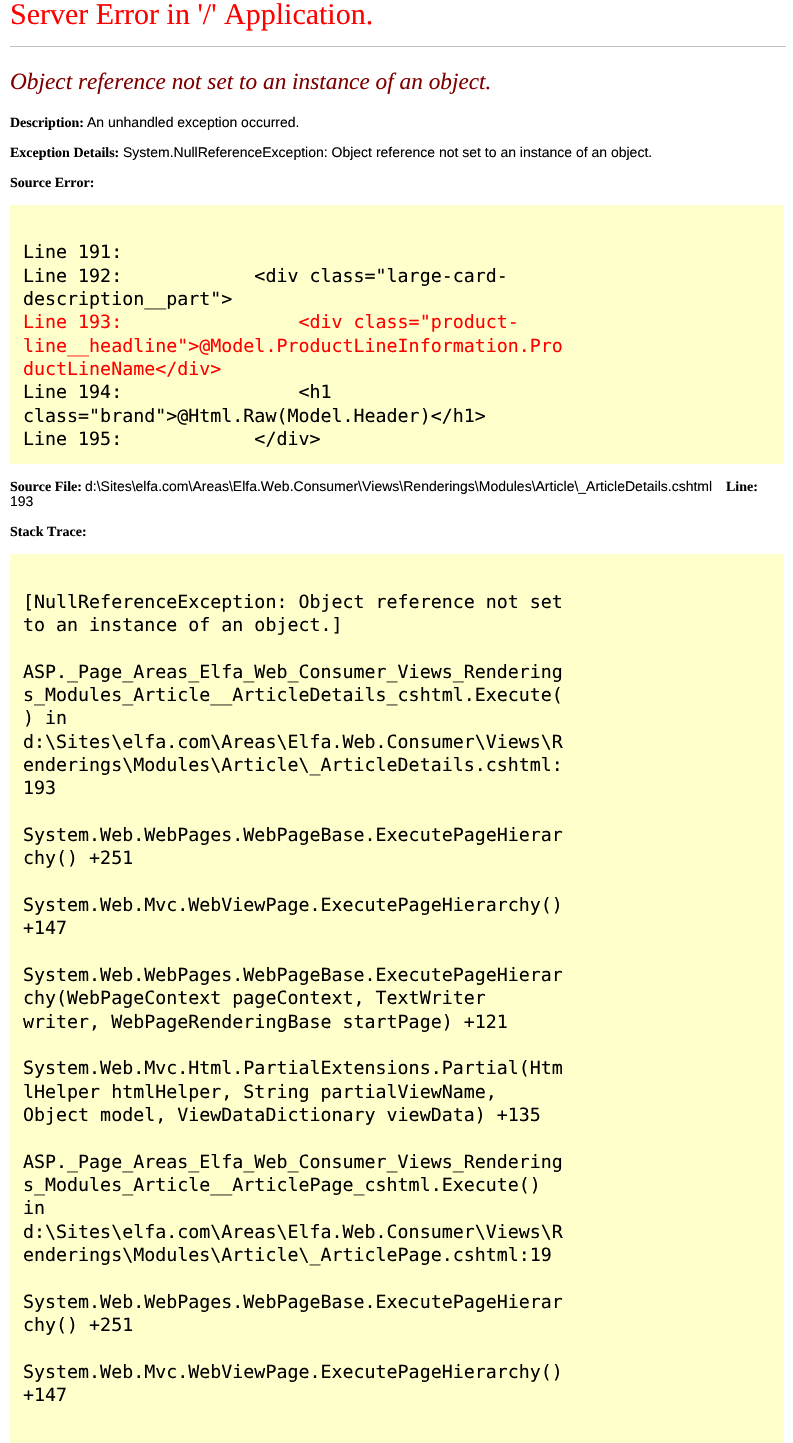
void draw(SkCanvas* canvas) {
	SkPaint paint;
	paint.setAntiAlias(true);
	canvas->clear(0xffffffff);
	SkFont f1(fontMgr->matchFamilyStyle("Liberation Serif", SkFontStyle::Normal()), 30);
	f1.setSubpixel(true);
	paint.setColor(0xffff0000);
	canvas->drawString("Server Error in '/' Application.", 10, 24, f1, paint);
	paint.setColor(0xffc0c0c0);
	canvas->drawRect(SkRect::MakeXYWH(10, 46, 776, 1), paint);
	SkFont f2(fontMgr->matchFamilyStyle("Liberation Serif", SkFontStyle::Italic()), 23.3);
	f2.setSubpixel(true);
	paint.setColor(0xff800000);
	canvas->drawString("Object reference not set to an instance of an object.", 10, 89, f2, paint);
	SkFont f3(fontMgr->matchFamilyStyle("Liberation Serif", SkFontStyle::Bold()), 14);
	f3.setSubpixel(true);
	paint.setColor(0xff000000);
	canvas->drawString("Description:", 10, 127, f3, paint);
	SkFont f4(fontMgr->matchFamilyStyle("Liberation Sans", SkFontStyle::Normal()), 14);
	f4.setSubpixel(true);
	canvas->drawString("An unhandled exception occurred.", 87, 127, f4, paint);
	canvas->drawString("Exception Details:", 10, 157, f3, paint);
	canvas->drawString("System.NullReferenceException: Object reference not set to an instance of an object.", 123, 157, f4, paint);
	canvas->drawString("Source Error:", 10, 187, f3, paint);
	paint.setColor(0xffffffcc);
	canvas->drawRect(SkRect::MakeXYWH(10, 205, 774, 259), paint);
	SkFont f5(fontMgr->matchFamilyStyle("DejaVu Sans Mono", SkFontStyle::Normal()), 18.3);
	f5.setSubpixel(true);
	paint.setColor(0xff000000);
	canvas->drawString("Line 191:", 23, 258, f5, paint);
	canvas->drawString("Line 192:            <div class=\"large-card-", 23, 282, f5, paint);
	canvas->drawString("description__part\">", 23, 305, f5, paint);
	paint.setColor(0xffff0000);
	canvas->drawString("Line 193:                <div class=\"product-", 23, 328, f5, paint);
	canvas->drawString("line__headline\">@Model.ProductLineInformation.Pro", 23, 352, f5, paint);
	canvas->drawString("ductLineName</div>", 23, 375, f5, paint);
	paint.setColor(0xff000000);
	canvas->drawString("Line 194:                <h1", 23, 398, f5, paint);
	canvas->drawString("class=\"brand\">@Html.Raw(Model.Header)</h1>", 23, 422, f5, paint);
	canvas->drawString("Line 195:            </div>", 23, 445, f5, paint);
	canvas->drawString("Source File:", 10, 491, f3, paint);
	canvas->drawString("d:\\Sites\\elfa.com\\Areas\\Elfa.Web.Consumer\\Views\\Renderings\\Modules\\Article\\_ArticleDetails.cshtml", 85, 491, f4, paint);
	canvas->drawString("Line:", 726, 491, f3, paint);
	canvas->drawString("193", 10, 506, f4, paint);
	canvas->drawString("Stack Trace:", 10, 536, f3, paint);
	paint.setColor(0xffffffcc);
	canvas->drawRect(SkRect::MakeXYWH(10, 554, 774, 889), paint);
	paint.setColor(0xff000000);
	canvas->drawString("[NullReferenceException: Object reference not set", 23, 608, f5, paint);
	canvas->drawString("to an instance of an object.]", 23, 631, f5, paint);
	canvas->drawString("ASP._Page_Areas_Elfa_Web_Consumer_Views_Rendering", 23, 678, f5, paint);
	canvas->drawString("s_Modules_Article__ArticleDetails_cshtml.Execute(", 23, 701, f5, paint);
	canvas->drawString(") in", 23, 724, f5, paint);
	canvas->drawString("d:\\Sites\\elfa.com\\Areas\\Elfa.Web.Consumer\\Views\\R", 23, 748, f5, paint);
	canvas->drawString("enderings\\Modules\\Article\\_ArticleDetails.cshtml:", 23, 771, f5, paint);
	canvas->drawString("193", 23, 794, f5, paint);
	canvas->drawString("System.Web.WebPages.WebPageBase.ExecutePageHierar", 23, 841, f5, paint);
	canvas->drawString("chy() +251", 23, 864, f5, paint);
	canvas->drawString("System.Web.Mvc.WebViewPage.ExecutePageHierarchy()", 23, 911, f5, paint);
	canvas->drawString("+147", 23, 934, f5, paint);
	canvas->drawString("System.Web.WebPages.WebPageBase.ExecutePageHierar", 23, 981, f5, paint);
	canvas->drawString("chy(WebPageContext pageContext, TextWriter", 23, 1004, f5, paint);
	canvas->drawString("writer, WebPageRenderingBase startPage) +121", 23, 1028, f5, paint);
	canvas->drawString("System.Web.Mvc.Html.PartialExtensions.Partial(Htm", 23, 1074, f5, paint);
	canvas->drawString("lHelper htmlHelper, String partialViewName,", 23, 1098, f5, paint);
	canvas->drawString("Object model, ViewDataDictionary viewData) +135", 23, 1121, f5, paint);
	canvas->drawString("ASP._Page_Areas_Elfa_Web_Consumer_Views_Rendering", 23, 1168, f5, paint);
	canvas->drawString("s_Modules_Article__ArticlePage_cshtml.Execute()", 23, 1191, f5, paint);
	canvas->drawString("in", 23, 1214, f5, paint);
	canvas->drawString("d:\\Sites\\elfa.com\\Areas\\Elfa.Web.Consumer\\Views\\R", 23, 1238, f5, paint);
	canvas->drawString("enderings\\Modules\\Article\\_ArticlePage.cshtml:19", 23, 1261, f5, paint);
	canvas->drawString("System.Web.WebPages.WebPageBase.ExecutePageHierar", 23, 1308, f5, paint);
	canvas->drawString("chy() +251", 23, 1331, f5, paint);
	canvas->drawString("System.Web.Mvc.WebViewPage.ExecutePageHierarchy()", 23, 1378, f5, paint);
	canvas->drawString("+147", 23, 1401, f5, paint);
}
